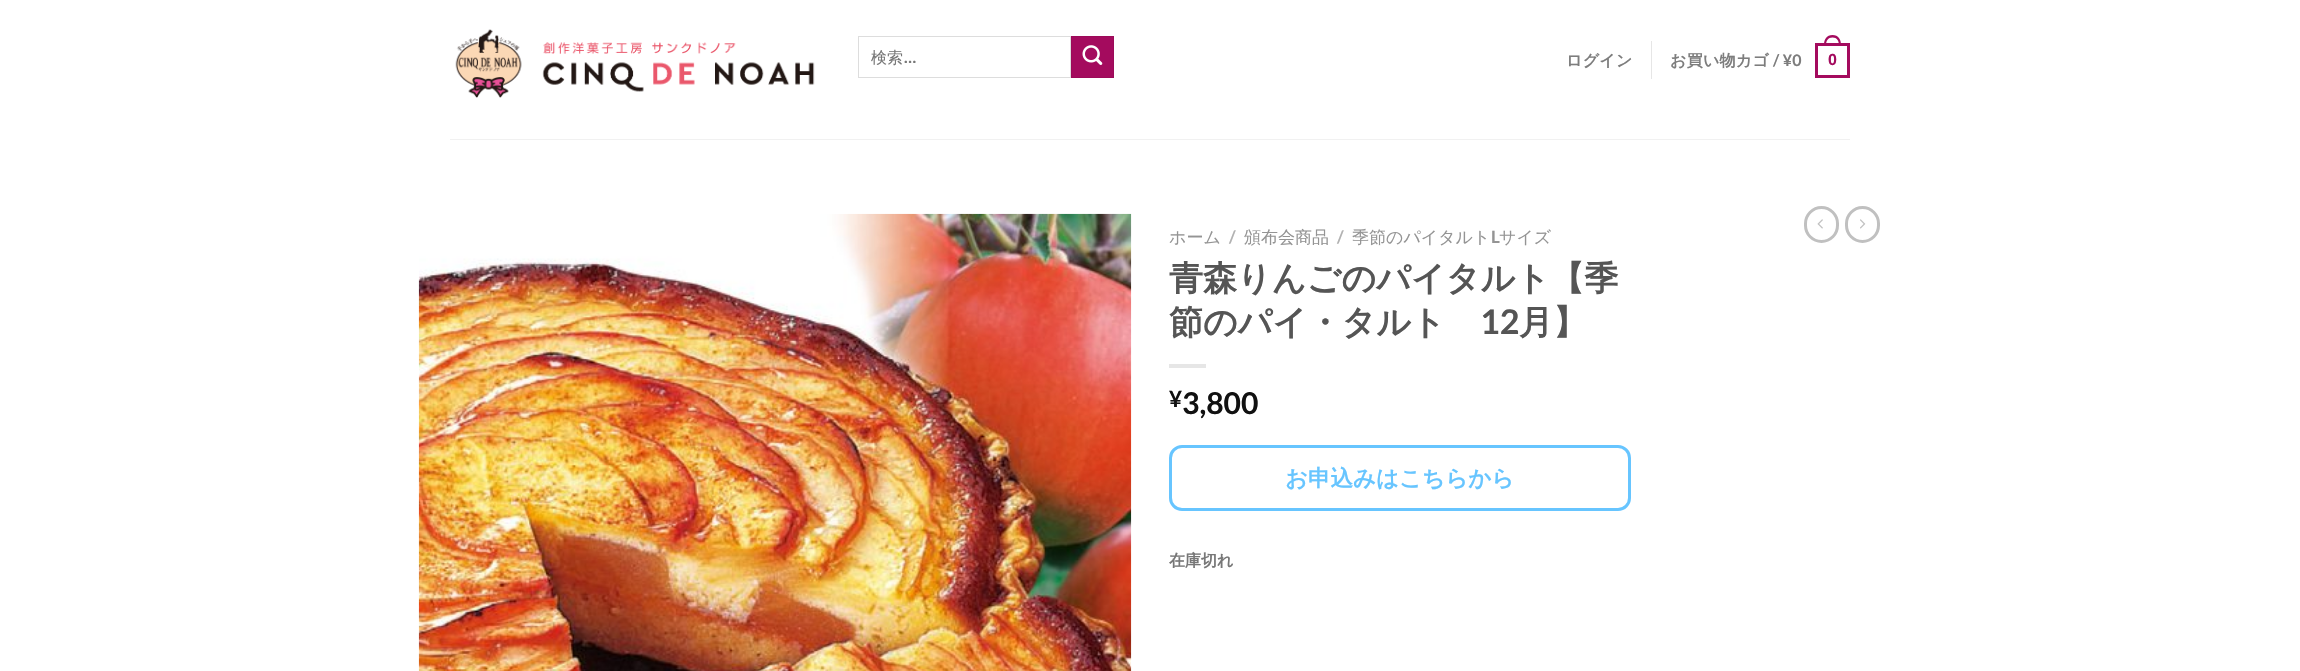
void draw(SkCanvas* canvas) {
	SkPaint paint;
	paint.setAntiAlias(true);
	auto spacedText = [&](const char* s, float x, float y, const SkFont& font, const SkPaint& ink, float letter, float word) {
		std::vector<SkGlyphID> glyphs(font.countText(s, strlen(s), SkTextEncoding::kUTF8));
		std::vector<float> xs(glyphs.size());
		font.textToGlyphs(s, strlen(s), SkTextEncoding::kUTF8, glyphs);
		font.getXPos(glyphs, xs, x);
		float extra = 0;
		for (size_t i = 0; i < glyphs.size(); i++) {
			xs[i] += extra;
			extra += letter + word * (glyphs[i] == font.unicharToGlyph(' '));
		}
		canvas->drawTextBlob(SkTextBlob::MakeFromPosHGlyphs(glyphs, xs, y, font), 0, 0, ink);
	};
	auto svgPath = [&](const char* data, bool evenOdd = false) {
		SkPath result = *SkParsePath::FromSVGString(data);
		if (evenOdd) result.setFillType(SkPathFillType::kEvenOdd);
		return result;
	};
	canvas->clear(0xffffffff);
	canvas->drawImageRect(SkImages::DeferredFromEncodedData(SkData::MakeFromFileName("img1.png")), SkRect::MakeXYWH(455, 29, 360, 69), SkSamplingOptions());
	paint.setStroke(true);
	paint.setStrokeWidth(1);
	paint.setColor(0xffdddddd);
	canvas->drawRect(SkRect::MakeXYWH(858.5, 36.5, 212, 41), paint);
	SkFont f1(fontMgr->matchFamilyStyle("WenQuanYi Zen Hei", SkFontStyle(500, SkFontStyle::kNormal_Width, SkFontStyle::kUpright_Slant)), 16);
	f1.setSubpixel(true);
	paint.setStroke(false);
	paint.setColor(0xff777777);
	canvas->drawString("検索", 871, 63, f1, paint);
	SkFont f2(fontMgr->matchFamilyStyle("Lato", SkFontStyle::Bold()), 16);
	f2.setSubpixel(true);
	canvas->drawString("…", 904, 63, f2, paint);
	paint.setColor(0xffa40b5e);
	canvas->drawRect(SkRect::MakeXYWH(1071.5, 36.5, 42, 41), paint);
	paint.setStroke(true);
	paint.setColor(0xff9c0a59);
	canvas->drawRect(SkRect::MakeXYWH(1071.5, 36.5, 42, 41), paint);
	canvas->drawImageRect(SkImages::DeferredFromEncodedData(SkData::MakeFromFileName("img2.png")), SkRect::MakeXYWH(1082, 45, 21, 20), SkSamplingOptions());
	SkFont f3(fontMgr->matchFamilyStyle("WenQuanYi Zen Hei", SkFontStyle::Bold()), 16);
	f3.setSubpixel(true);
	paint.setStroke(false);
	paint.setColor(0xff7d7d7d);
	spacedText("ログイン", 1566, 66, f3, paint, 0.25, 0);
	paint.setColor(0xffe6e6e6);
	canvas->drawRect(SkRect::MakeXYWH(1651, 41, 1, 38), paint);
	paint.setColor(0xff7d7d7d);
	spacedText("お買い物カゴ", 1670, 66, f3, paint, 0.25, 0);
	spacedText("/ ¥0", 1773, 66, f2, paint, 0.25, 0);
	paint.setStroke(true);
	paint.setStrokeWidth(3);
	paint.setColor(0xffa40b5e);
	canvas->drawRect(SkRect::MakeXYWH(1816.5, 44.5, 32, 32), paint);
	paint.setStroke(false);
	canvas->drawPath(svgPath("M1832.5 35C1838.5 35 1841 39.5 1841 45H1824C1824 39.5 1826.5 35 1832.5 35ZM1832.5 37.5C1837 37.5 1839 41 1839 45H1826C1826 41 1828 37.5 1832.5 37.5Z", true), paint);
	SkFont f4(fontMgr->matchFamilyStyle("Liberation Sans", SkFontStyle::Bold()), 16);
	f4.setSubpixel(true);
	spacedText("0", 1828, 65, f4, paint, 0.25, 0);
	paint.setColor(0xfff1f1f1);
	canvas->drawRect(SkRect::MakeXYWH(450, 139, 1400, 1), paint);
	canvas->drawImageRect(SkImages::DeferredFromEncodedData(SkData::MakeFromFileName("img3.png")), SkRect::MakeXYWH(418, 213, 714, 458), SkSamplingOptions());
	SkFont f5(fontMgr->matchFamilyStyle("WenQuanYi Zen Hei", SkFontStyle(500, SkFontStyle::kNormal_Width, SkFontStyle::kUpright_Slant)), 17);
	f5.setSubpixel(true);
	paint.setColor(0xff949494);
	canvas->drawString("ホーム", 1169, 243, f5, paint);
	SkFont f6(fontMgr->matchFamilyStyle("Lato", SkFontStyle::Bold()), 17);
	f6.setSubpixel(true);
	paint.setColor(0xffb2b2b2);
	canvas->drawString("/", 1229, 243, f6, paint);
	paint.setColor(0xff949494);
	canvas->drawString("頒布会商品", 1244, 243, f5, paint);
	paint.setColor(0xffb2b2b2);
	canvas->drawString("/", 1337, 243, f6, paint);
	paint.setColor(0xff949494);
	canvas->drawString("季節のパイタルト", 1352, 243, f5, paint);
	canvas->drawString("L", 1491, 243, f6, paint);
	canvas->drawString("サイズ", 1499, 243, f5, paint);
	SkFont f7(fontMgr->matchFamilyStyle("WenQuanYi Zen Hei", SkFontStyle::Bold()), 34);
	f7.setSubpixel(true);
	paint.setColor(0xff555555);
	canvas->drawString("青森りんごのパイタルト【季", 1169, 290, f7, paint);
	canvas->drawString("節のパイ・タルト", 1169, 334, f7, paint);
	SkFont f8(fontMgr->matchFamilyStyle("Lato", SkFontStyle::Bold()), 34);
	f8.setSubpixel(true);
	canvas->drawString("12", 1480, 334, f8, paint);
	canvas->drawString("月】", 1519, 334, f7, paint);
	paint.setColor(0xffe6e6e6);
	canvas->drawRect(SkRect::MakeXYWH(1169, 364, 37, 4), paint);
	SkFont f9(fontMgr->matchFamilyStyle("Lato", SkFontStyle::Bold()), 22.5);
	f9.setSubpixel(true);
	paint.setColor(0xff111111);
	canvas->drawString("¥", 1169, 407, f9, paint);
	SkFont f10(fontMgr->matchFamilyStyle("Lato", SkFontStyle::Bold()), 30);
	f10.setSubpixel(true);
	canvas->drawString("3,800", 1182, 414, f10, paint);
	paint.setStroke(true);
	paint.setColor(0xff67c5ff);
	canvas->drawRoundRect(SkRect::MakeXYWH(1170.5, 446.5, 459, 63), 11.5, 11.5, paint);
	SkFont f11(fontMgr->matchFamilyStyle("WenQuanYi Zen Hei", SkFontStyle::Bold()), 22.5);
	f11.setSubpixel(true);
	paint.setStroke(false);
	canvas->drawString("お申込みはこちらから", 1285, 486, f11, paint);
	paint.setColor(0xff777777);
	canvas->drawString("在庫切れ", 1169, 566, f3, paint);
	paint.setStroke(true);
	paint.setColor(0xffc0c0c0);
	canvas->drawRoundRect(SkRect::MakeXYWH(1805.5, 207.5, 32, 34), 16, 16, paint);
	canvas->drawImageRect(SkImages::DeferredFromEncodedData(SkData::MakeFromFileName("img4.png")), SkRect::MakeXYWH(1817, 219, 6, 10), SkSamplingOptions());
	canvas->drawRoundRect(SkRect::MakeXYWH(1846.5, 207.5, 32, 34), 16, 16, paint);
	canvas->drawImageRect(SkImages::DeferredFromEncodedData(SkData::MakeFromFileName("img5.png")), SkRect::MakeXYWH(1860, 219, 6, 10), SkSamplingOptions());
}
